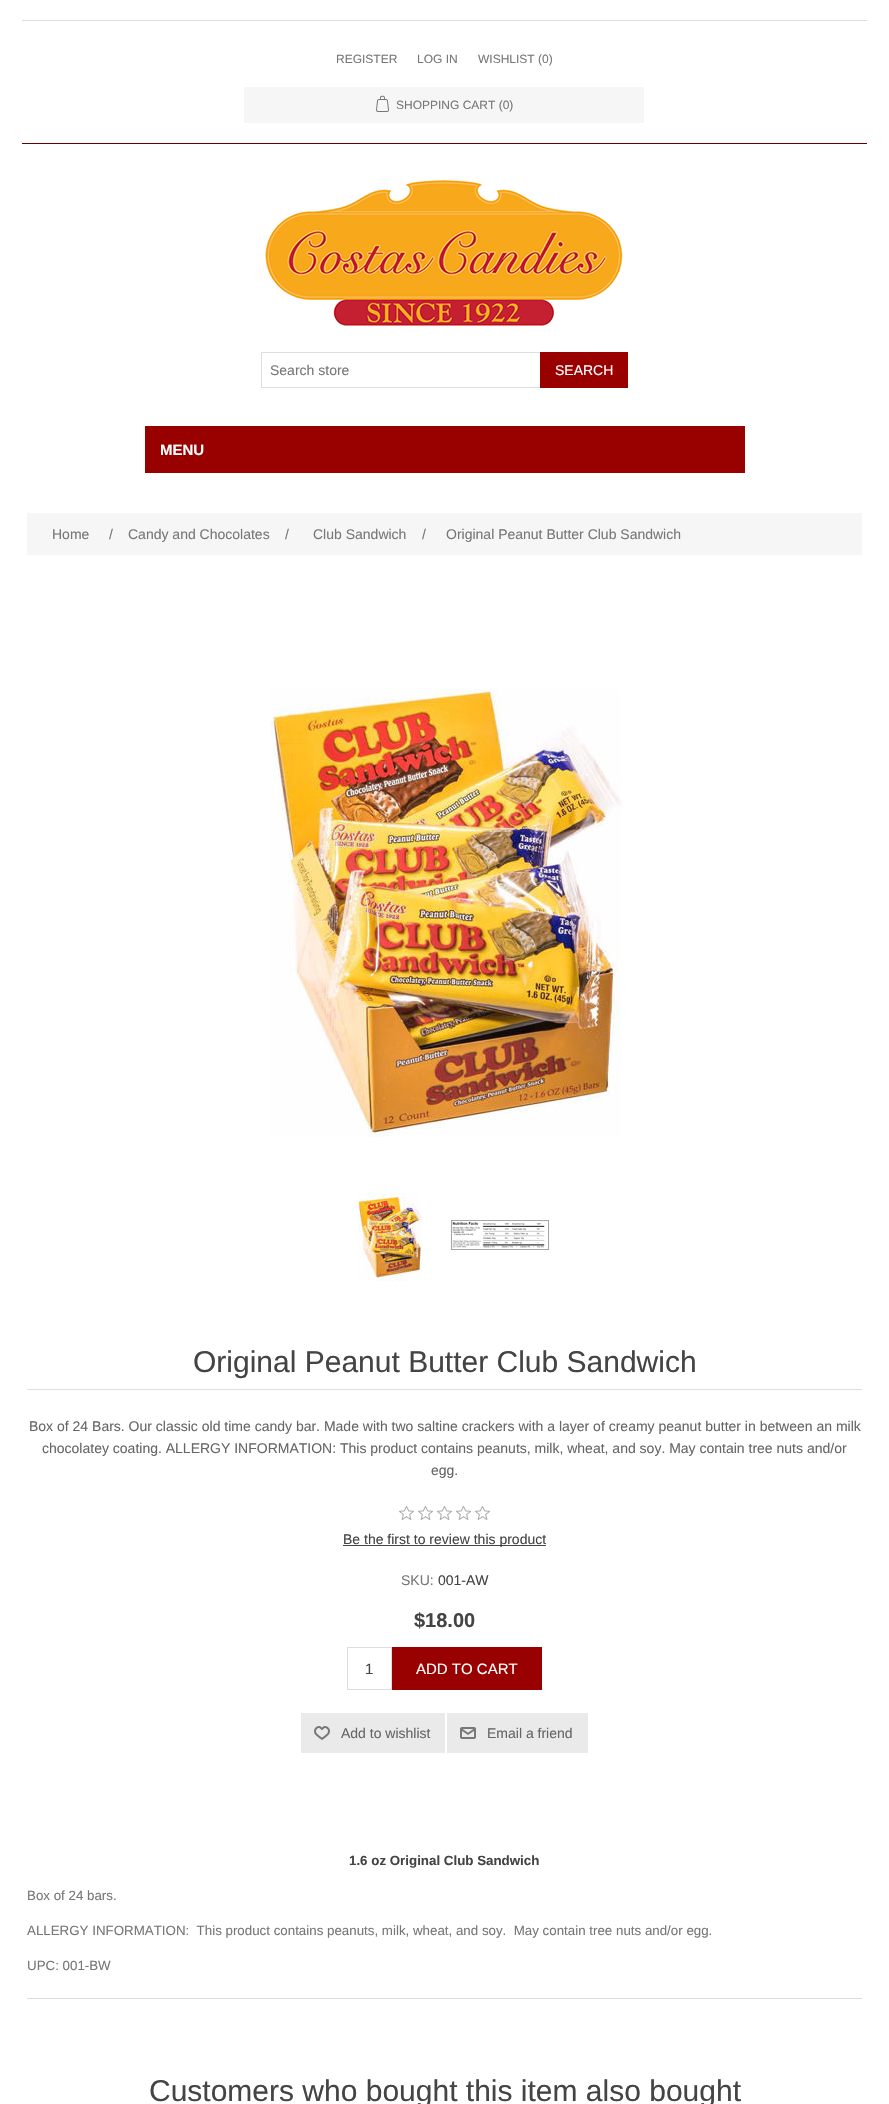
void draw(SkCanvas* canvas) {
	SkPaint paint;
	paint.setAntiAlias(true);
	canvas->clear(0xffffffff);
	paint.setColor(0xff630000);
	canvas->drawRect(SkRect::MakeXYWH(22, 143, 845, 1), paint);
	paint.setColor(0xffdddddd);
	canvas->drawRect(SkRect::MakeXYWH(22, 20, 845, 1), paint);
	SkFont f1(fontMgr->matchFamilyStyle("Liberation Sans", SkFontStyle::Normal()), 12);
	f1.setSubpixel(true);
	paint.setColor(0xff777777);
	canvas->drawString("REGISTER", 336, 63, f1, paint);
	canvas->drawString("LOG IN", 417, 63, f1, paint);
	canvas->drawString("WISHLIST (0)", 478, 63, f1, paint);
	paint.setColor(0xfff6f6f6);
	canvas->drawRect(SkRect::MakeXYWH(244, 87, 400, 36), paint);
	canvas->drawImageRect(SkImages::DeferredFromEncodedData(SkData::MakeFromFileName("img1.png")), SkRect::MakeXYWH(376, 95, 13, 17), SkSamplingOptions());
	paint.setColor(0xff777777);
	canvas->drawString("SHOPPING CART (0)", 396, 109, f1, paint);
	canvas->drawImageRect(SkImages::DeferredFromEncodedData(SkData::MakeFromFileName("img2.png")), SkRect::MakeXYWH(265, 180, 358, 146), SkSamplingOptions());
	paint.setStroke(true);
	paint.setStrokeWidth(1);
	paint.setColor(0xffdddddd);
	canvas->drawRect(SkRect::MakeXYWH(261.5, 352.5, 279, 35), paint);
	SkFont f2(fontMgr->matchFamilyStyle("Liberation Sans", SkFontStyle::Normal()), 14);
	f2.setSubpixel(true);
	paint.setStroke(false);
	paint.setColor(0xff777777);
	canvas->drawString("Search store", 270, 375, f2, paint);
	paint.setColor(0xff990000);
	canvas->drawRect(SkRect::MakeXYWH(540, 352, 88, 36), paint);
	paint.setColor(0xffffffff);
	canvas->drawString("SEARCH", 555, 375, f2, paint);
	paint.setColor(0xff990000);
	canvas->drawRect(SkRect::MakeXYWH(145, 426, 600, 47), paint);
	SkFont f3(fontMgr->matchFamilyStyle("Liberation Sans", SkFontStyle::Bold()), 15);
	f3.setSubpixel(true);
	paint.setColor(0xffffffff);
	canvas->drawString("MENU", 160, 455, f3, paint);
	paint.setColor(0xfff6f6f6);
	canvas->drawRect(SkRect::MakeXYWH(27, 513, 835, 42), paint);
	paint.setColor(0xff777777);
	canvas->drawString("Home", 52, 539, f2, paint);
	canvas->drawString("/", 109, 539, f2, paint);
	canvas->drawString("Candy and Chocolates", 128, 539, f2, paint);
	canvas->drawString("/", 285, 539, f2, paint);
	canvas->drawString("Club Sandwich", 313, 539, f2, paint);
	canvas->drawString("/", 422, 539, f2, paint);
	canvas->drawString("Original Peanut Butter Club Sandwich", 446, 539, f2, paint);
	paint.setColor(0xffdddddd);
	canvas->drawRect(SkRect::MakeXYWH(27, 1998, 835, 1), paint);
	canvas->drawImageRect(SkImages::DeferredFromEncodedData(SkData::MakeFromFileName("img3.png")), SkRect::MakeXYWH(270, 689, 352, 448), SkSamplingOptions());
	canvas->drawImageRect(SkImages::DeferredFromEncodedData(SkData::MakeFromFileName("img4.png")), SkRect::MakeXYWH(358, 1193, 64, 88), SkSamplingOptions());
	canvas->drawImageRect(SkImages::DeferredFromEncodedData(SkData::MakeFromFileName("img5.png")), SkRect::MakeXYWH(450, 1220, 100, 30), SkSamplingOptions());
	canvas->drawRect(SkRect::MakeXYWH(27, 1389, 835, 1), paint);
	SkFont f4(fontMgr->matchFamilyStyle("Liberation Sans", SkFontStyle::Normal()), 30);
	f4.setSubpixel(true);
	paint.setColor(0xff444444);
	canvas->drawString("Original Peanut Butter Club Sandwich", 193, 1372, f4, paint);
	paint.setColor(0xff666666);
	canvas->drawString("Box of 24 Bars. Our classic old time candy bar. Made with two saltine crackers with a layer of creamy peanut butter in between an milk", 29, 1431, f2, paint);
	canvas->drawString("chocolatey coating. ALLERGY INFORMATION: This product contains peanuts, milk, wheat, and soy. May contain tree nuts and/or", 42, 1453, f2, paint);
	canvas->drawString("egg.", 431, 1475, f2, paint);
	canvas->drawImageRect(SkImages::DeferredFromEncodedData(SkData::MakeFromFileName("img6.png")), SkRect::MakeXYWH(399, 1506, 91, 14), SkSamplingOptions());
	paint.setColor(0xff444444);
	canvas->drawRect(SkRect::MakeXYWH(343, 1545, 203, 1), paint);
	canvas->drawString("Be the first to review this product", 343, 1544, f2, paint);
	paint.setColor(0xff777777);
	canvas->drawString("SKU:", 401, 1585, f2, paint);
	paint.setColor(0xff444444);
	canvas->drawString("001-AW", 438, 1585, f2, paint);
	SkFont f5(fontMgr->matchFamilyStyle("Liberation Sans", SkFontStyle::Bold()), 20);
	f5.setSubpixel(true);
	canvas->drawString("$18.00", 414, 1627, f5, paint);
	paint.setStroke(true);
	paint.setColor(0xffdddddd);
	canvas->drawRect(SkRect::MakeXYWH(347.5, 1647.5, 44, 42), paint);
	SkFont f6(fontMgr->matchFamilyStyle("Liberation Sans", SkFontStyle::Normal()), 15);
	f6.setSubpixel(true);
	paint.setStroke(false);
	paint.setColor(0xff444444);
	canvas->drawString("1", 365, 1674, f6, paint);
	paint.setColor(0xff990000);
	canvas->drawRect(SkRect::MakeXYWH(392, 1647, 150, 43), paint);
	paint.setColor(0xffffffff);
	canvas->drawString("ADD TO CART", 416, 1674, f6, paint);
	paint.setColor(0xffeaeaea);
	canvas->drawRect(SkRect::MakeXYWH(301, 1713, 144, 40), paint);
	canvas->drawImageRect(SkImages::DeferredFromEncodedData(SkData::MakeFromFileName("img7.png")), SkRect::MakeXYWH(314, 1726, 16, 14), SkSamplingOptions());
	paint.setColor(0xff666666);
	canvas->drawString("Add to wishlist", 341, 1738, f2, paint);
	paint.setColor(0xffeaeaea);
	canvas->drawRect(SkRect::MakeXYWH(447, 1713, 141, 40), paint);
	canvas->drawImageRect(SkImages::DeferredFromEncodedData(SkData::MakeFromFileName("img8.png")), SkRect::MakeXYWH(460, 1727, 16, 12), SkSamplingOptions());
	paint.setColor(0xff666666);
	canvas->drawString("Email a friend", 487, 1738, f2, paint);
	SkFont f7(fontMgr->matchFamilyStyle("Liberation Sans", SkFontStyle::Bold()), 13.33);
	f7.setSubpixel(true);
	paint.setColor(0xff444444);
	canvas->drawString("1.6 oz Original Club Sandwich", 349, 1865, f7, paint);
	SkFont f8(fontMgr->matchFamilyStyle("Liberation Sans", SkFontStyle::Normal()), 13.33);
	f8.setSubpixel(true);
	paint.setColor(0xff777777);
	canvas->drawString("Box of 24 bars.", 27, 1900, f8, paint);
	canvas->drawString("ALLERGY INFORMATION:  This product contains peanuts, milk, wheat, and soy.  May contain tree nuts and/or egg.", 27, 1935, f8, paint);
	canvas->drawString("UPC: 001-BW", 27, 1970, f8, paint);
	paint.setColor(0xff444444);
	canvas->drawString("Customers who bought this item also bought", 149, 2101, f4, paint);
}
